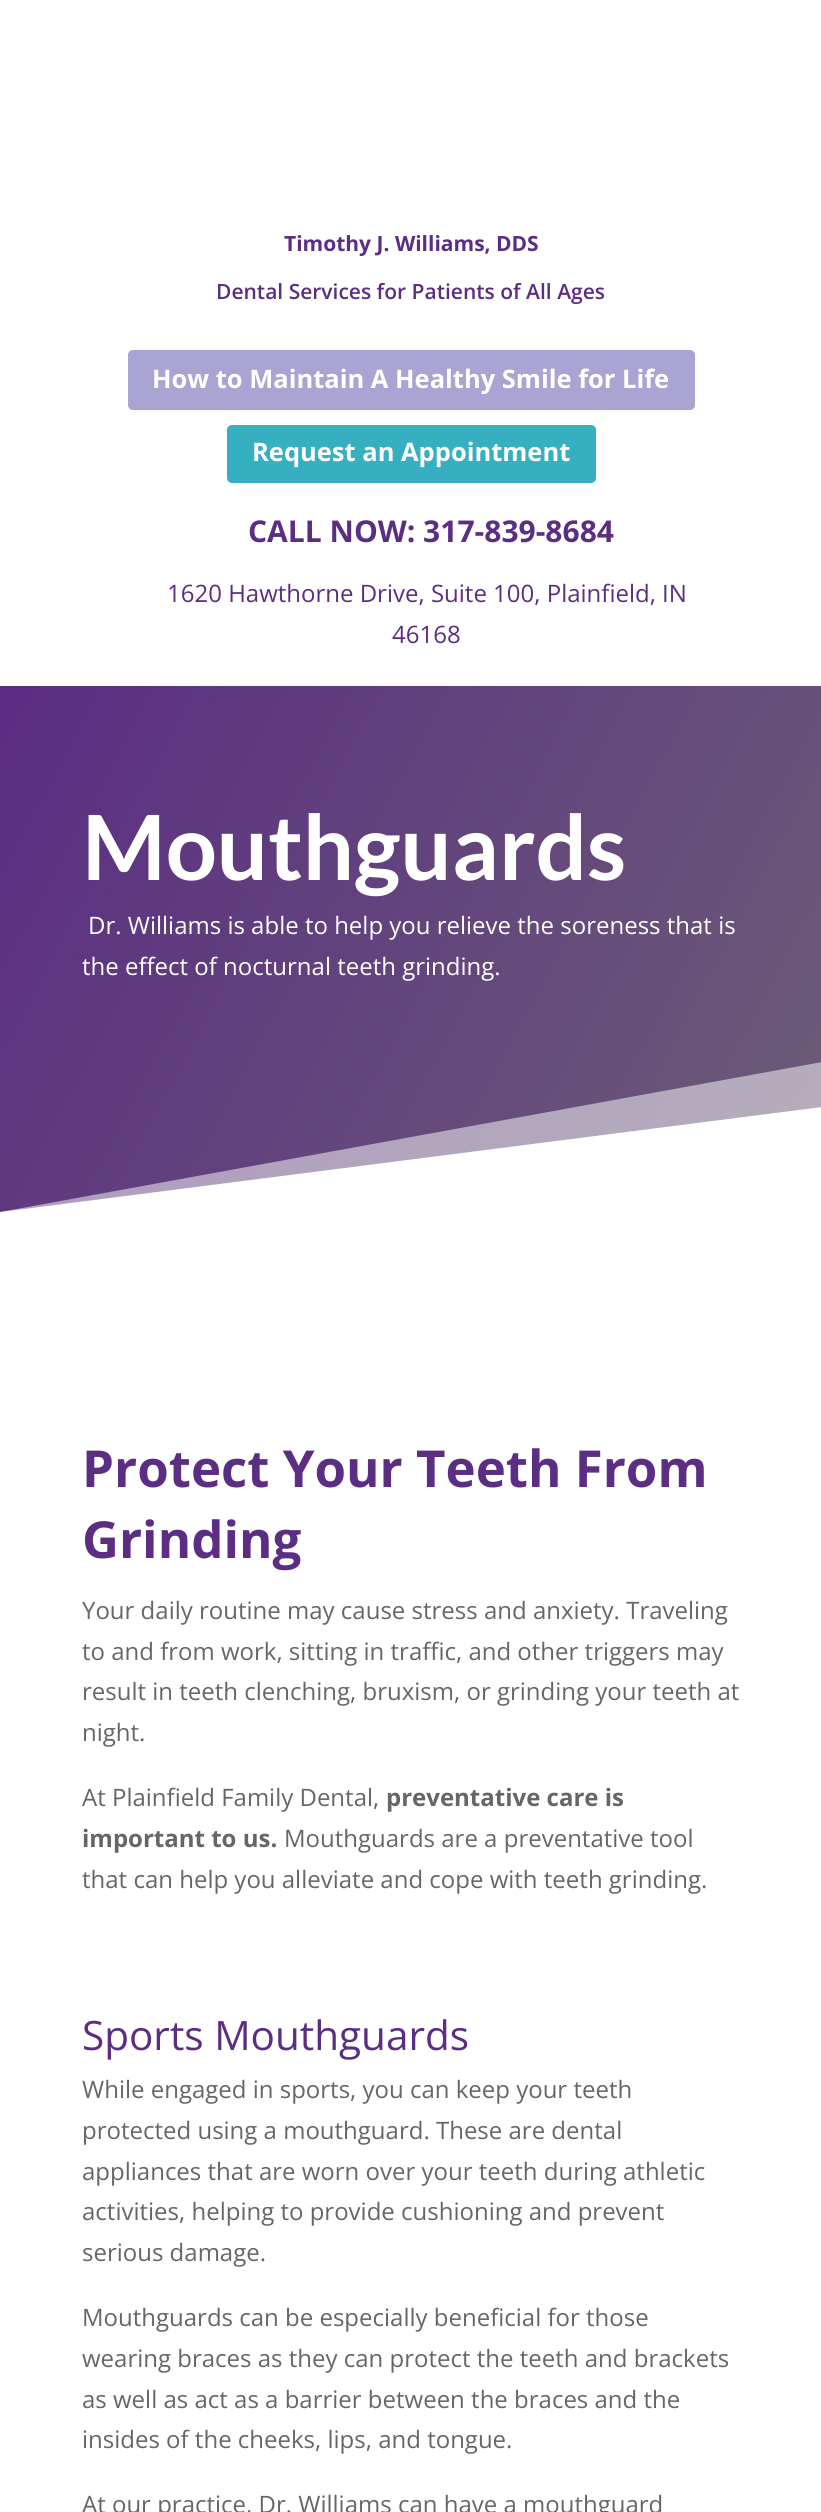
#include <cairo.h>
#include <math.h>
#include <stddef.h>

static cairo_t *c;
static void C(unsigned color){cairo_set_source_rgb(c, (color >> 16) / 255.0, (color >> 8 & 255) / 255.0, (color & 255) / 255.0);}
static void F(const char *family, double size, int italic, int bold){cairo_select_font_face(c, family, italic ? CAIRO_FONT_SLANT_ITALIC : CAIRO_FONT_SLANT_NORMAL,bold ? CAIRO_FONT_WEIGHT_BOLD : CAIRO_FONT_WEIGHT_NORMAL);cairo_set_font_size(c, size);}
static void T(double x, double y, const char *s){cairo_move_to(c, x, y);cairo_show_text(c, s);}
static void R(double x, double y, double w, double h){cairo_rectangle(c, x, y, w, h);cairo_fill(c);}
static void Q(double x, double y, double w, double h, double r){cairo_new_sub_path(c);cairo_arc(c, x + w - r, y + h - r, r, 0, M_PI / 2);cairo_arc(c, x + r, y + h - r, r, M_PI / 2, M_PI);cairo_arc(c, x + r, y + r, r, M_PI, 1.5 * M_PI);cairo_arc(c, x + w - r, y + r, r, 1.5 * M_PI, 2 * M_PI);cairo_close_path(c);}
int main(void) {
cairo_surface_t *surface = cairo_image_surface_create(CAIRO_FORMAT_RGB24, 821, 2512);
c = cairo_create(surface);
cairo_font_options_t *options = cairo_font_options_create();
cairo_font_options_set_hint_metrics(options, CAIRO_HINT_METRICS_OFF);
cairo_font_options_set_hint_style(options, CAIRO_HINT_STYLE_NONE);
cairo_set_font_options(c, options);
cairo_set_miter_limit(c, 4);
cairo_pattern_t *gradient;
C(0xffffff);
cairo_paint(c);
F("Open Sans",21,0,1);
C(0x5b2d83);
T(284,251,"Timothy J. Williams, DDS");
F("Open Sans SemiBold",21,0,0);
T(216,299,"Dental Services for Patients of All Ages");
C(0xa9a4d1);
Q(128,350,567,60,5);
cairo_fill(c);
F("Open Sans",25.5,0,1);
C(0xffffff);
T(152,388,"How to Maintain A Healthy Smile for Life");
C(0x36afc1);
Q(227,425,369,58,5);
cairo_fill(c);
C(0xffffff);
T(252,461,"Request an Appointment");
F("Open Sans",30,0,1);
C(0x5b2d83);
T(248,542,"CALL NOW: 317-839-8684");
F("Open Sans",24,0,0);
T(167,602,"1620 Hawthorne Drive, Suite 100, Plainfield, IN");
T(392,643,"46168");
gradient = cairo_pattern_create_linear(-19,720,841,1177);
cairo_pattern_add_color_stop_rgba(gradient,0,0.357,0.176,0.514,1);
cairo_pattern_add_color_stop_rgba(gradient,1,0.42,0.365,0.463,1);
cairo_set_source(c,gradient);
cairo_pattern_destroy(gradient);
R(0,686,821,526);
F("Lato",90,0,1);
C(0xffffff);
T(82,880,"Mouthguards");
F("Open Sans",24,0,0);
T(88,934,"Dr. Williams is able to help you relieve the soreness that is");
T(82,975,"the effect of nocturnal teeth grinding.");
cairo_set_source_rgba(c,1,1,1,0.5);
cairo_new_path(c);
cairo_move_to(c,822,1062);
cairo_line_to(c,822,1212);
cairo_line_to(c,0,1212);
cairo_close_path(c);
cairo_fill(c);
C(0xffffff);
cairo_new_path(c);
cairo_move_to(c,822,1107);
cairo_line_to(c,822,1212);
cairo_line_to(c,0,1212);
cairo_close_path(c);
cairo_fill(c);
F("Open Sans",51,0,1);
C(0x5b2d83);
T(82,1487,"Protect Your Teeth From");
T(82,1558,"Grinding");
F("Open Sans",24,0,0);
C(0x666666);
T(82,1619,"Your daily routine may cause stress and anxiety. Traveling");
T(82,1660,"to and from work, sitting in traffic, and other triggers may");
T(82,1700,"result in teeth clenching, bruxism, or grinding your teeth at");
T(82,1741,"night.");
T(82,1806,"At Plainfield Family Dental,");
F("Open Sans",24,0,1);
T(386,1806,"preventative care is");
T(82,1847,"important to us.");
F("Open Sans",24,0,0);
T(284,1847,"Mouthguards are a preventative tool");
T(82,1888,"that can help you alleviate and cope with teeth grinding.");
F("Open Sans",40.5,0,0);
C(0x5b2d83);
T(82,2050,"Sports Mouthguards");
F("Open Sans",24,0,0);
C(0x666666);
T(82,2098,"While engaged in sports, you can keep your teeth");
T(82,2139,"protected using a mouthguard. These are dental");
T(82,2180,"appliances that are worn over your teeth during athletic");
T(82,2220,"activities, helping to provide cushioning and prevent");
T(82,2261,"serious damage.");
T(82,2326,"Mouthguards can be especially beneficial for those");
T(82,2367,"wearing braces as they can protect the teeth and brackets");
T(82,2408,"as well as act as a barrier between the braces and the");
T(82,2448,"insides of the cheeks, lips, and tongue.");
T(82,2513,"At our practice, Dr. Williams can have a mouthguard");
cairo_surface_write_to_png(surface, "o.png");
cairo_font_options_destroy(options);
cairo_destroy(c);
cairo_surface_destroy(surface);
return 0;
}
